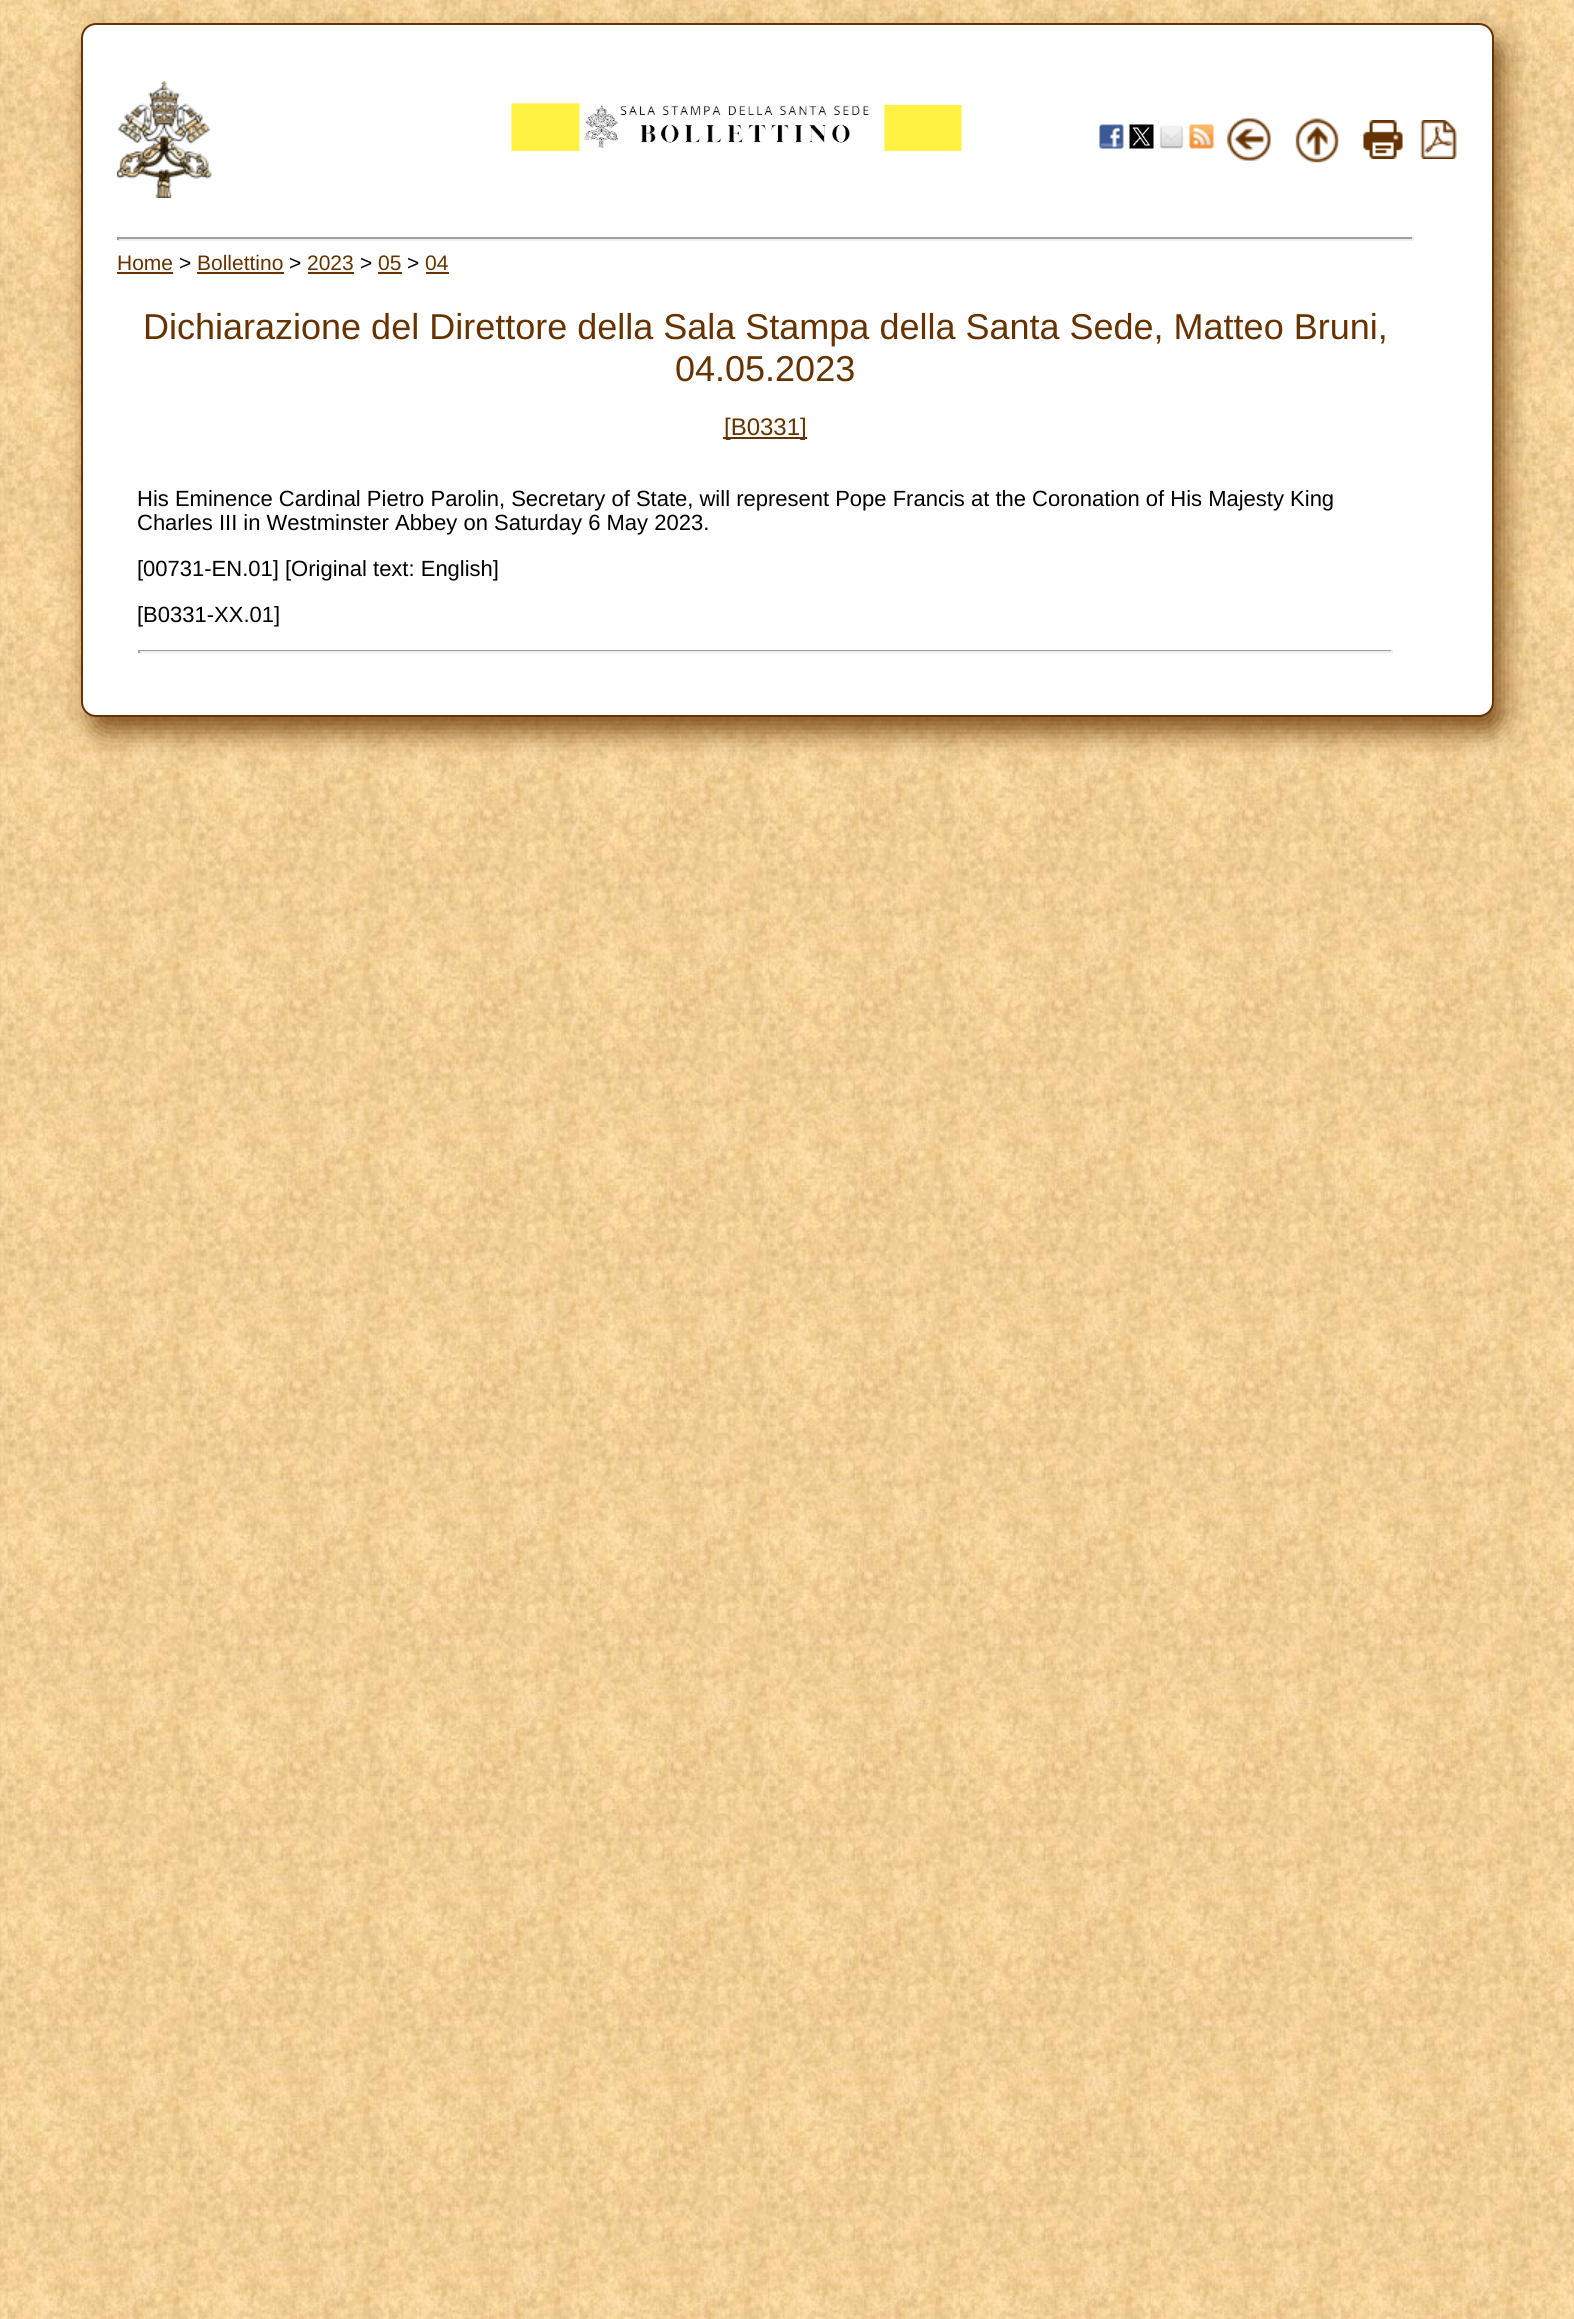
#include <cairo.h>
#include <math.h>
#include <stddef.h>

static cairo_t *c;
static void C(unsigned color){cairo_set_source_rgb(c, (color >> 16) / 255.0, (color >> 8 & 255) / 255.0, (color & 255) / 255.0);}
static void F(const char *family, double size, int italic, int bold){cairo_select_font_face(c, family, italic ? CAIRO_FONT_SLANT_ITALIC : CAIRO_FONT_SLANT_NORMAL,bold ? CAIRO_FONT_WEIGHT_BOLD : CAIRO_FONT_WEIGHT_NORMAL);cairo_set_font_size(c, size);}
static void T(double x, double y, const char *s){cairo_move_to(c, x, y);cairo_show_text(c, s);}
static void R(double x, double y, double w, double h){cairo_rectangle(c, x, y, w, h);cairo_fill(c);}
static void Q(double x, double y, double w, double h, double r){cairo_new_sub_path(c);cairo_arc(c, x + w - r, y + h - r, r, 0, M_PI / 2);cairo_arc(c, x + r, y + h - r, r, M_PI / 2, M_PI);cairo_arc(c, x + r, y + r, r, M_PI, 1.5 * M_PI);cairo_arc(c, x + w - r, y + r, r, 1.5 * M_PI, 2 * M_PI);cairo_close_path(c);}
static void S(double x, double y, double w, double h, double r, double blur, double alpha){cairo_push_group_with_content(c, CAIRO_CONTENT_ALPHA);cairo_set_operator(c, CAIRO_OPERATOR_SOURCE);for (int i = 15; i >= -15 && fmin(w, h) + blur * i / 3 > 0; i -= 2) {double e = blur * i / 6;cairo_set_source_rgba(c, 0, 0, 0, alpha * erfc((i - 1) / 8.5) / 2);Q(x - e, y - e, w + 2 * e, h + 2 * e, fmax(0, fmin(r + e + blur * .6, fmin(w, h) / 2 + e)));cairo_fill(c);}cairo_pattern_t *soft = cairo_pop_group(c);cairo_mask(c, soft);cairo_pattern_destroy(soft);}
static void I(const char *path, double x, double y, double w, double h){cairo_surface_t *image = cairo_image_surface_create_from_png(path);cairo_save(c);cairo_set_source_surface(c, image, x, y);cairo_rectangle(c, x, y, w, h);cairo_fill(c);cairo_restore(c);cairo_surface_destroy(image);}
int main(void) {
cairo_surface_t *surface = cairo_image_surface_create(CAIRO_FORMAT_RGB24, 1574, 2319);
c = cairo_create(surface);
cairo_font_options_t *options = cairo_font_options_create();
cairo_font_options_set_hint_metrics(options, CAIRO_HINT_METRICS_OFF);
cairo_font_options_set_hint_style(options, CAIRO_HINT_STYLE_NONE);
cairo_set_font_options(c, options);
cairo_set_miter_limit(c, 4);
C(0xffffff);
cairo_paint(c);
I("1.png",0,0,1574,2319);
C(0x663300);
S(90,38,1413,694,15,13,.8);
C(0xffffff);
Q(82,24,1411,692,14);
cairo_fill_preserve(c);
C(0x663300);
cairo_stroke(c);
I("2.png",117,81,95,117);
I("3.png",511,102,451,50);
I("4.png",1099,124,25,25);
I("5.png",1129,124,25,25);
I("6.png",1159,125,25,24);
I("7.png",1189,124,25,25);
I("8.png",1226,118,45,43);
I("9.png",1295,118,44,45);
I("10.png",1363,120,40,39);
I("11.png",1420,120,37,39);
C(0x9f9f9f);
R(117,237,1296,2);
C(0xeeeeee);
R(1412,237,2,3);
R(117,239,1296,2);
C(0x9f9f9f);
R(117,237,2,3);
F("Liberation Sans",21,0,0);
C(0x663300);
T(117,270,"Home");
R(117,272,56,2);
C(0x000000);
T(179,270,">");
C(0x663300);
T(197,270,"Bollettino");
R(197,272,87,2);
C(0x000000);
T(289,270,">");
C(0x663300);
T(307,270,"2023");
R(308,272,46,2);
C(0x000000);
T(360,270,">");
C(0x663300);
T(378,270,"05");
R(378,272,24,2);
C(0x000000);
T(407,270,">");
C(0x663300);
T(425,270,"04");
R(426,272,23,2);
F("Liberation Sans",36,0,0);
T(143,339,"Dichiarazione del Direttore della Sala Stampa della Santa Sede, Matteo Bruni,");
T(675,381,"04.05.2023");
R(723,437,84,2);
F("Liberation Sans",24,0,0);
T(724,435,"[B0331]");
F("Liberation Sans",22,0,0);
C(0x000000);
T(137,506,"His Eminence Cardinal Pietro Parolin, Secretary of State, will represent Pope Francis at the Coronation of His Majesty King");
T(137,530,"Charles III in Westminster Abbey on Saturday 6 May 2023.");
T(137,576,"[00731-EN.01] [Original text: English]");
T(137,622,"[B0331-XX.01]");
C(0x9f9f9f);
R(138,650,1254,1);
C(0xeeeeee);
R(1391,650,2,3);
R(138,651,1254,2);
C(0x9f9f9f);
R(138,650,2,3);
cairo_surface_write_to_png(surface, "o.png");
cairo_font_options_destroy(options);
cairo_destroy(c);
cairo_surface_destroy(surface);
return 0;
}
